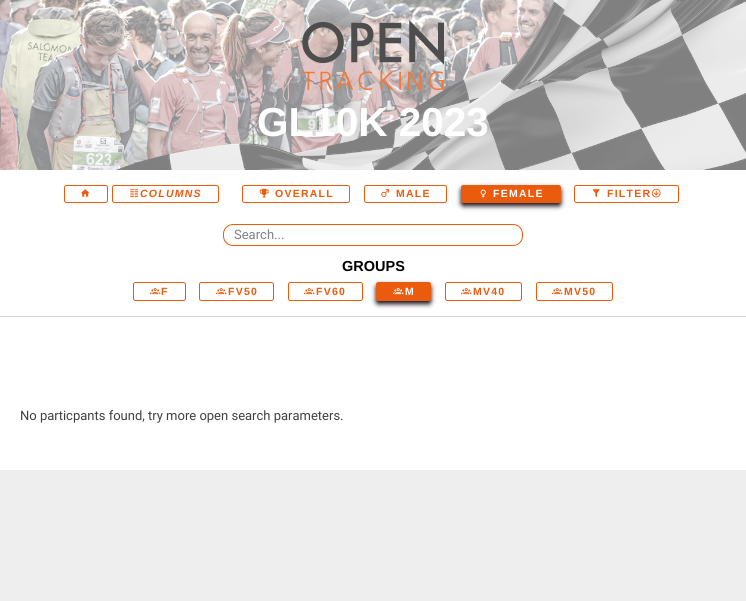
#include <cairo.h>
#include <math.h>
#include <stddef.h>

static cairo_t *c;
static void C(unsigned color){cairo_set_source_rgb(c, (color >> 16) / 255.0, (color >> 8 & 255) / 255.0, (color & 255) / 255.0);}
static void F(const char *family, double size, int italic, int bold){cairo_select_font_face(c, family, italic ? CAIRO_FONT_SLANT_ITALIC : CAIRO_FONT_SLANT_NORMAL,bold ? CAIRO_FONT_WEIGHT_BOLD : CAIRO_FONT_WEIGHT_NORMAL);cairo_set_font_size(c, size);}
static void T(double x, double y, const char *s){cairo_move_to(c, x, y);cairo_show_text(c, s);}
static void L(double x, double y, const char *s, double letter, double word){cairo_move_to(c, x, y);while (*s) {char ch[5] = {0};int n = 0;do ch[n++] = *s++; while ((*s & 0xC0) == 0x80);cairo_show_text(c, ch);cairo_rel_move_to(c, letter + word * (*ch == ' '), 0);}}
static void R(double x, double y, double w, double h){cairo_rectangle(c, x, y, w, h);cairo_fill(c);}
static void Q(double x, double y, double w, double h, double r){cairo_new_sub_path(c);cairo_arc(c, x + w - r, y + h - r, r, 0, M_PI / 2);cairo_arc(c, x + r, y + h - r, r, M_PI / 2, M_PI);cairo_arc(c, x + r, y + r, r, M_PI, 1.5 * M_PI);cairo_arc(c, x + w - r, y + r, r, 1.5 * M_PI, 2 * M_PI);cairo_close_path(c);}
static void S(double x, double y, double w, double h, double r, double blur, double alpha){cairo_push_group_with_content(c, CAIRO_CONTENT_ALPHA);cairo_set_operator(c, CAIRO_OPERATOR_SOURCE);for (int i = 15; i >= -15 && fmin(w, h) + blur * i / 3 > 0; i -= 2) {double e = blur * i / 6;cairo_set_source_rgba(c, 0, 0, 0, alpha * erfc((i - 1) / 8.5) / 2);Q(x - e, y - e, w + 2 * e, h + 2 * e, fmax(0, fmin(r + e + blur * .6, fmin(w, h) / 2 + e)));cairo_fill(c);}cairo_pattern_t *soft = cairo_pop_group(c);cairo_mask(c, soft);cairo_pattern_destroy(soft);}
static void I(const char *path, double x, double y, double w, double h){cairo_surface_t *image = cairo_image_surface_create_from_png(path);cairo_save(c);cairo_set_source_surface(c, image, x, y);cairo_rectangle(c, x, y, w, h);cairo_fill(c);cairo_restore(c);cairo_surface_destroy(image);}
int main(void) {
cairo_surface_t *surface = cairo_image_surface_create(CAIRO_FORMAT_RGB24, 746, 601);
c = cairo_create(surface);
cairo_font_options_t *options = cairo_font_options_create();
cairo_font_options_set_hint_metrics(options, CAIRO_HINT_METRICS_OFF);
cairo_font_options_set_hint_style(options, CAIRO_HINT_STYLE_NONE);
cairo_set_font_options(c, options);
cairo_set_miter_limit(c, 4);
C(0xeeeeee);
cairo_paint(c);
C(0xffffff);
R(0,170,746,300);
I("1.png",0,0,746,170);
I("2.png",302,20,142,70);
F("Liberation Sans",40.5,0,1);
T(257,136,"GL10K 2023");
C(0xd3d3d3);
R(0,316,746,1);
Q(64.5,185.5,43,17,2);
C(0xeb5b0d);
cairo_set_line_width(c,1);
cairo_stroke(c);
I("3.png",81,189,9,8);
Q(112.5,185.5,106,17,2);
cairo_stroke(c);
I("4.png",130,189,9,8);
F("Liberation Sans",10.5,1,1);
L(140,197,"COLUMNS",1.25,0);
Q(242.5,185.5,107,17,2);
cairo_stroke(c);
I("5.png",259,188,10,10);
F("Liberation Sans",10.5,0,1);
L(275,197,"OVERALL",1.25,0);
Q(364.5,185.5,82,17,2);
cairo_stroke(c);
I("6.png",381,189,9,8);
L(396,197,"MALE",1.25,0);
C(0x130815);
S(461,188,100,18,2.5,2.5,1);
Q(461.5,185.5,99,17,2);
C(0xeb5b0d);
cairo_stroke(c);
R(462,186,98,16);
I("7.png",480,189,6,9);
C(0xffffff);
L(493,197,"FEMALE",1.25,0);
Q(574.5,185.5,104,17,2);
C(0xeb5b0d);
cairo_stroke(c);
I("8.png",592,189,8,8);
L(607,197,"FILTER",1.25,0);
I("9.png",651,188,10,10);
Q(223.5,224.5,299,21,9.5);
cairo_stroke(c);
F("Roboto",13,0,0);
C(0x808080);
T(234,239,"Search...");
F("Liberation Sans",14.5,0,1);
C(0x000000);
T(342,271,"GROUPS");
Q(133.5,282.5,52,18,2);
C(0xeb5b0d);
cairo_stroke(c);
I("10.png",150,288,11,7);
F("Liberation Sans",10.5,0,1);
L(161,295,"F",1.25,0);
Q(199.5,282.5,74,18,2);
cairo_stroke(c);
I("10.png",216,288,11,7);
L(228,295,"FV50",1.25,0);
Q(288.5,282.5,74,18,2);
cairo_stroke(c);
I("10.png",304,288,11,7);
L(316,295,"FV60",1.25,0);
C(0x130815);
S(376,285,55,19,2.5,2.5,1);
Q(376.5,282.5,54,18,2);
C(0xeb5b0d);
cairo_stroke(c);
R(377,283,53,17);
I("11.png",393,288,11,7);
C(0xffffff);
L(405,295,"M",1.25,0);
Q(445.5,282.5,76,18,2);
C(0xeb5b0d);
cairo_stroke(c);
I("10.png",461,288,11,7);
L(473,295,"MV40",1.25,0);
Q(536.5,282.5,76,18,2);
cairo_stroke(c);
I("10.png",552,288,11,7);
L(564,295,"MV50",1.25,0);
F("Roboto",13,0,0);
C(0x404040);
T(20,420,"No particpants found, try more open search parameters.");
cairo_surface_write_to_png(surface, "o.png");
cairo_font_options_destroy(options);
cairo_destroy(c);
cairo_surface_destroy(surface);
return 0;
}
